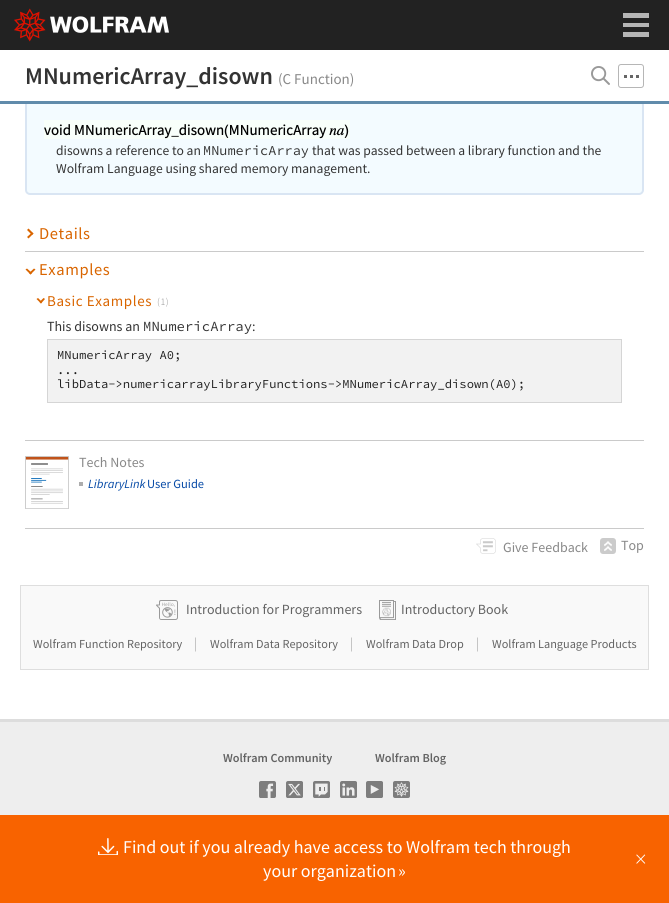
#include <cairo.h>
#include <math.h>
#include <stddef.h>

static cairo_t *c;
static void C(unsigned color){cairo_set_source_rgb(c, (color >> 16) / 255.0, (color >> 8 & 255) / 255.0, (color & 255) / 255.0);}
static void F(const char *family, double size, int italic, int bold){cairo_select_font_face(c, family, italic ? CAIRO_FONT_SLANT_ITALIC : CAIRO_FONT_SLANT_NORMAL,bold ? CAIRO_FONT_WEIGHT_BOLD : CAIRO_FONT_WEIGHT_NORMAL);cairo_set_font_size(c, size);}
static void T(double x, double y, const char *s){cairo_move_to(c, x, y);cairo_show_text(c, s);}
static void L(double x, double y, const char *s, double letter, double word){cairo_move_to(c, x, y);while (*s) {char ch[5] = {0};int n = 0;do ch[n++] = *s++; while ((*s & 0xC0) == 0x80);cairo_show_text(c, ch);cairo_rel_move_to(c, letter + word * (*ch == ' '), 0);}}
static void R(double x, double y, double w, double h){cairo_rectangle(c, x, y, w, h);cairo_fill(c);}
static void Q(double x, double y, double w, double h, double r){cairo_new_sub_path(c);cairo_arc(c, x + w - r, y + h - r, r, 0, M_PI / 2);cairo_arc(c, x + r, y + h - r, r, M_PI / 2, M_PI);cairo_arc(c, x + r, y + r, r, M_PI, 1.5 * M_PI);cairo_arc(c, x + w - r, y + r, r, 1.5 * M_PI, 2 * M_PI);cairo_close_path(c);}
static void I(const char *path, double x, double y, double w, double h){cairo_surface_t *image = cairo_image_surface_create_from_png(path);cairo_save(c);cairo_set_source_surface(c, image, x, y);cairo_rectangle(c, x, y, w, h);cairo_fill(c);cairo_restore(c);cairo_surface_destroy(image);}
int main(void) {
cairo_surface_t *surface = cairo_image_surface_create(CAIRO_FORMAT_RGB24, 669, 903);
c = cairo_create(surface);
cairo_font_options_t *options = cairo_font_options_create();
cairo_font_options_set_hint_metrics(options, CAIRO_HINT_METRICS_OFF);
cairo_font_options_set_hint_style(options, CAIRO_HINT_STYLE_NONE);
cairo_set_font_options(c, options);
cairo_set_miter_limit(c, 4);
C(0xffffff);
cairo_paint(c);
C(0x222222);
R(0,0,669,50);
I("1.png",14,8,155,34);
C(0xb5b5b5);
R(623,13,26,5);
R(623,23,26,4);
R(623,32,26,5);
C(0xf3fbff);
Q(26,101,617,93,4);
cairo_fill_preserve(c);
C(0xd9e5f3);
cairo_stroke(c);
C(0xffffff);
R(27,100,615,1);
C(0x608bab);
R(0,101,669,3);
F("Source Sans Pro SemiBold",24,0,0);
C(0x333333);
T(25,84,"MNumericArray_disown");
F("Source Sans Pro",15,0,0);
C(0x888888);
T(278,84,"(C Function)");
I("2.png",591,66,19,19);
Q(618.5,64.5,25,23,2.5);
C(0xb6b6b6);
cairo_set_line_width(c,1);
cairo_stroke(c);
C(0x666666);
R(624,75,3,3);
R(630,75,3,3);
R(636,75,3,3);
I("3.png",44,120,306,19);
F("Source Sans Pro",13.6,0,0);
C(0x333333);
T(56,155,"disowns a reference to an");
F("Source Code Pro",13.6,0,0);
T(203,155,"MNumericArray");
F("Source Sans Pro",13.6,0,0);
T(312,155,"that was passed between a library function and the");
T(56,173,"Wolfram Language using shared memory management.");
C(0xd96500);
cairo_new_path(c);
cairo_move_to(c,27,230);
cairo_line_to(c,28.5,228.5);
cairo_line_to(c,33.5,233.5);
cairo_line_to(c,32,235);
cairo_close_path(c);
cairo_fill(c);
cairo_new_path(c);
cairo_move_to(c,27,237);
cairo_line_to(c,32,232.5);
cairo_line_to(c,33.5,233.5);
cairo_line_to(c,28.5,238.5);
cairo_close_path(c);
cairo_fill(c);
F("Source Sans Pro",16.5,0,0);
L(39,239,"Details",.6,0);
C(0xcacaca);
R(25,251,619,1);
C(0xd96500);
cairo_new_path(c);
cairo_move_to(c,29,273);
cairo_line_to(c,34,268.5);
cairo_line_to(c,35.5,269.5);
cairo_line_to(c,30.5,274.5);
cairo_close_path(c);
cairo_fill(c);
cairo_new_path(c);
cairo_move_to(c,25.5,269.5);
cairo_line_to(c,27,268.5);
cairo_line_to(c,32,273);
cairo_line_to(c,30.5,274.5);
cairo_close_path(c);
cairo_fill(c);
L(39,275,"Examples",.6,0);
cairo_new_path(c);
cairo_move_to(c,39.5,302);
cairo_line_to(c,43.5,298);
cairo_line_to(c,45,299);
cairo_line_to(c,41,303.5);
cairo_close_path(c);
cairo_fill(c);
cairo_new_path(c);
cairo_move_to(c,36.5,299);
cairo_line_to(c,38,298);
cairo_line_to(c,42,302);
cairo_line_to(c,41,303.5);
cairo_close_path(c);
cairo_fill(c);
F("Source Sans Pro",15,0,0);
L(47,306,"Basic Examples",.6,0);
F("Source Sans Pro Light",10,0,0);
C(0x888888);
L(157,305,"(1)",.6,0);
F("Source Sans Pro",14,0,0);
C(0x333333);
T(47,331,"This disowns an");
F("Source Code Pro",14,0,0);
T(143,331,"MNumericArray");
F("Source Sans Pro",14,0,0);
T(252,331,":");
C(0xf2f2f2);
cairo_rectangle(c,47.5,339.5,574,63);
cairo_fill_preserve(c);
C(0xd5d5d5);
cairo_stroke(c);
F("Source Code Pro",12.2,0,0);
C(0x1d1d1d);
T(57,359,"MNumericArray A0;");
T(57,374,"...");
T(57,388,"libData->numericarrayLibraryFunctions->MNumericArray_disown(A0);");
I("4.png",25,456,44,53);
C(0xcacaca);
R(25,440,619,1);
F("Source Sans Pro",14,0,0);
C(0x888888);
T(79,467,"Tech Notes");
C(0xadadad);
R(79,482,4,4);
F("Source Sans Pro",12.5,1,0);
C(0x0549a6);
T(88,488,"LibraryLink");
F("Source Sans Pro",12.5,0,0);
T(147,488,"User Guide");
C(0xcacaca);
R(25,528,619,1);
I("5.png",476,538,20,16);
F("Source Sans Pro",14,0,0);
C(0x888888);
T(503,552,"Give Feedback");
C(0xcbcbcb);
Q(600,538,16,16,3);
cairo_fill(c);
C(0x888888);
T(621,550,"Top");
I("6.png",604,541,8,10);
C(0xf9f9f9);
cairo_rectangle(c,20.5,585.5,628,84);
cairo_fill_preserve(c);
C(0xdedede);
cairo_stroke(c);
I("7.png",156,600,22,20);
C(0x636363);
T(186,614,"Introduction for Programmers");
I("8.png",379,600,17,20);
T(401,614,"Introductory Book");
F("Source Sans Pro",12.25,0,0);
T(33,648,"Wolfram Function Repository");
F("Source Sans Pro Light",14,0,0);
C(0x919191);
T(194,648,"|");
F("Source Sans Pro",12.25,0,0);
C(0x636363);
T(210,648,"Wolfram Data Repository");
F("Source Sans Pro Light",14,0,0);
C(0x919191);
T(350,648,"|");
F("Source Sans Pro",12.25,0,0);
C(0x636363);
T(366,648,"Wolfram Data Drop");
F("Source Sans Pro Light",14,0,0);
C(0x919191);
T(476,648,"|");
F("Source Sans Pro",12.25,0,0);
C(0x636363);
T(492,648,"Wolfram Language Products");
C(0xeeeeee);
R(0,722,669,93);
C(0xdddddd);
R(0,719,669,3);
F("Source Sans Pro SemiBold",12.25,0,0);
C(0x636363);
T(223,762,"Wolfram Community");
T(375,762,"Wolfram Blog");
I("9.png",259,781,17,17);
I("10.png",286,781,17,17);
I("11.png",313,781,17,17);
I("12.png",340,781,17,17);
I("13.png",366,781,17,17);
I("14.png",393,781,17,17);
C(0xf86300);
R(0,815,669,88);
I("15.png",98,838,20,17);
F("Source Sans Pro",18,0,0);
C(0xffffff);
T(123,853,"Find out if you already have access to Wolfram tech through");
T(263,877,"your organization");
T(398,877,"»");
F("Source Sans Pro Light",24,0,0);
T(635,867,"×");
cairo_surface_write_to_png(surface, "o.png");
cairo_font_options_destroy(options);
cairo_destroy(c);
cairo_surface_destroy(surface);
return 0;
}
